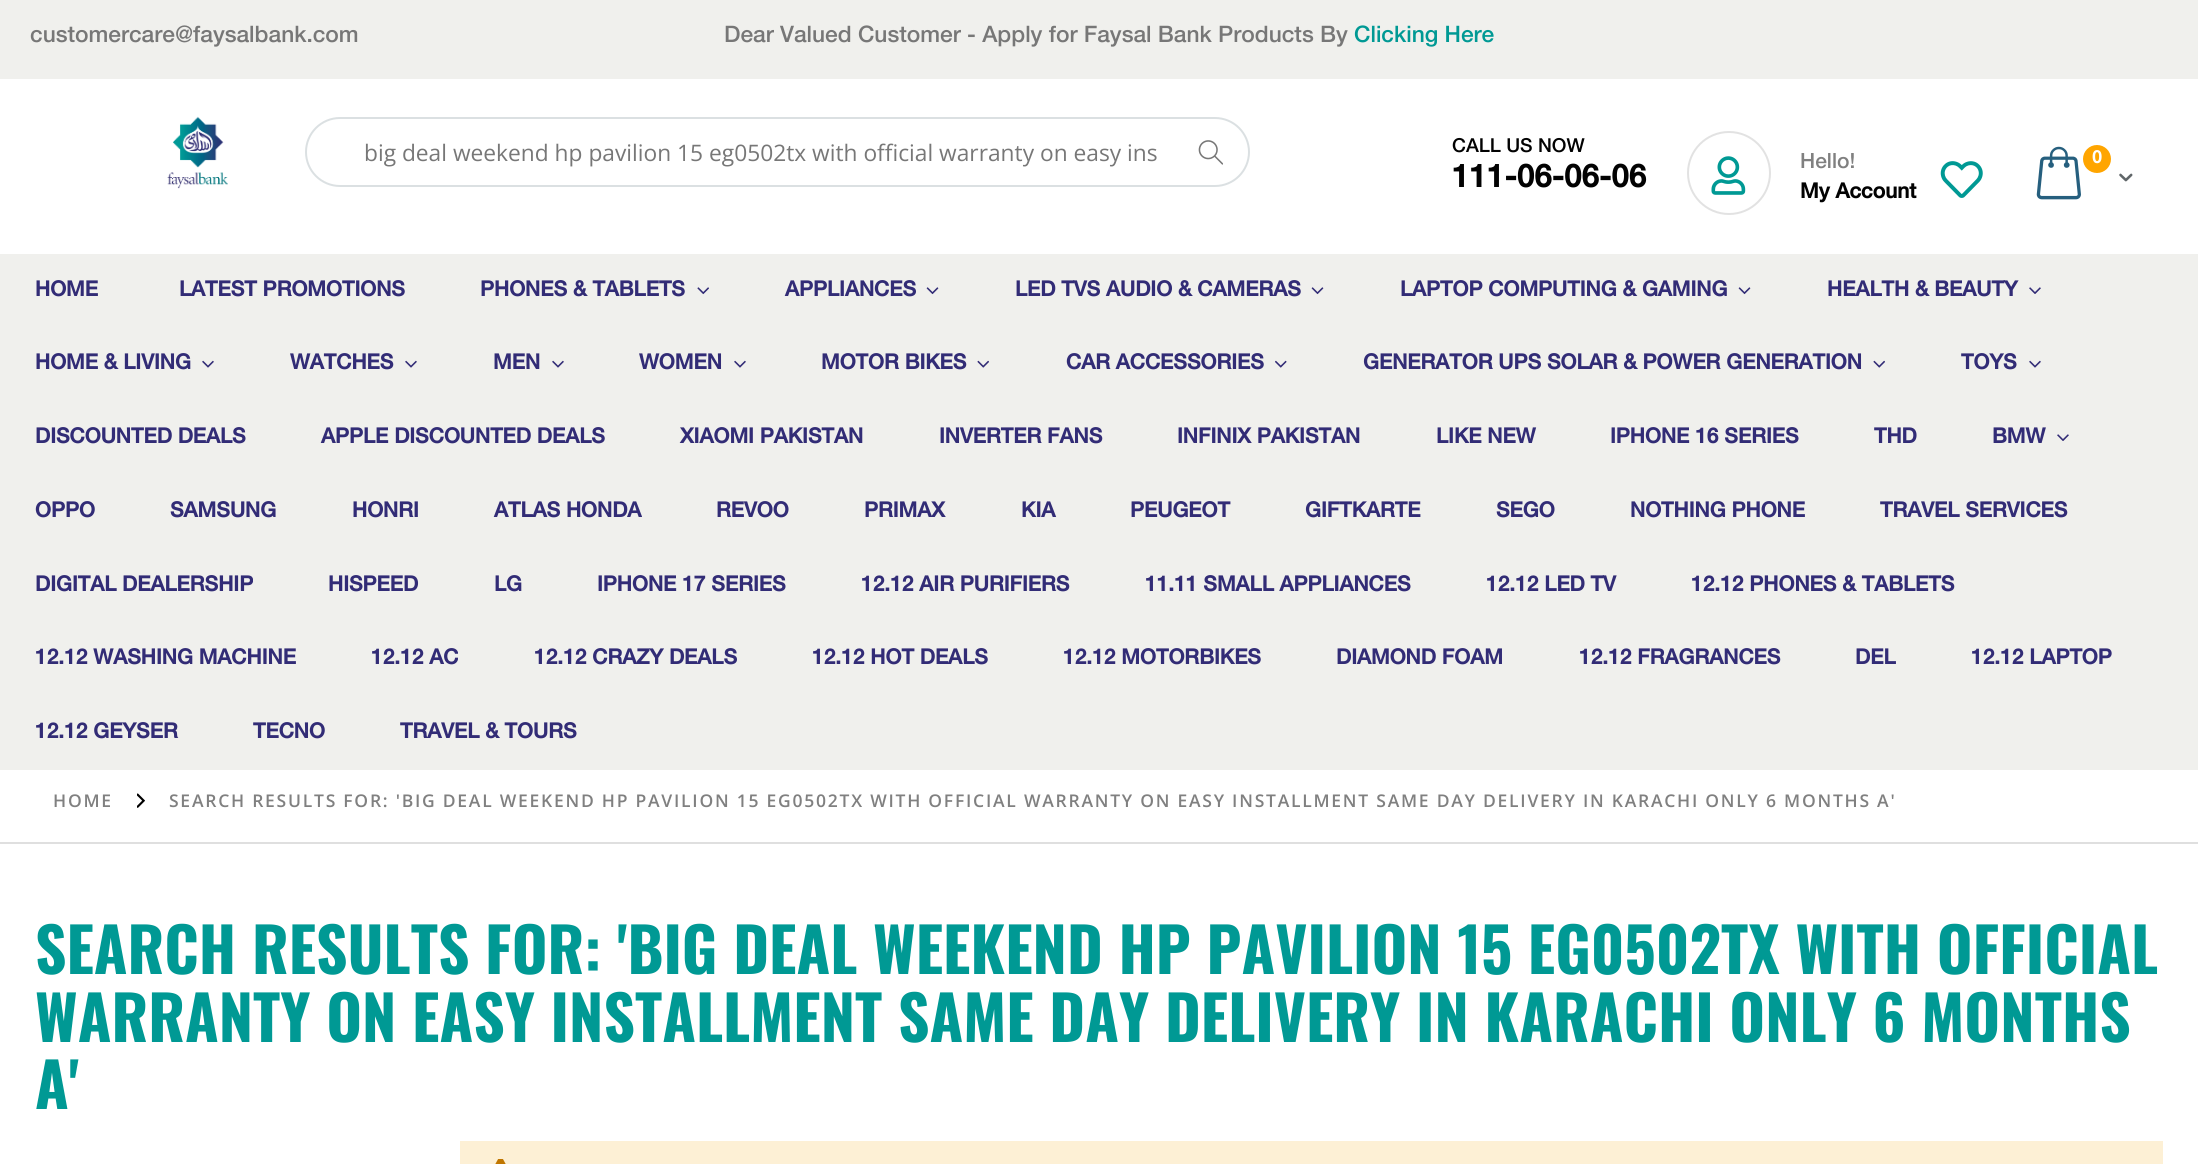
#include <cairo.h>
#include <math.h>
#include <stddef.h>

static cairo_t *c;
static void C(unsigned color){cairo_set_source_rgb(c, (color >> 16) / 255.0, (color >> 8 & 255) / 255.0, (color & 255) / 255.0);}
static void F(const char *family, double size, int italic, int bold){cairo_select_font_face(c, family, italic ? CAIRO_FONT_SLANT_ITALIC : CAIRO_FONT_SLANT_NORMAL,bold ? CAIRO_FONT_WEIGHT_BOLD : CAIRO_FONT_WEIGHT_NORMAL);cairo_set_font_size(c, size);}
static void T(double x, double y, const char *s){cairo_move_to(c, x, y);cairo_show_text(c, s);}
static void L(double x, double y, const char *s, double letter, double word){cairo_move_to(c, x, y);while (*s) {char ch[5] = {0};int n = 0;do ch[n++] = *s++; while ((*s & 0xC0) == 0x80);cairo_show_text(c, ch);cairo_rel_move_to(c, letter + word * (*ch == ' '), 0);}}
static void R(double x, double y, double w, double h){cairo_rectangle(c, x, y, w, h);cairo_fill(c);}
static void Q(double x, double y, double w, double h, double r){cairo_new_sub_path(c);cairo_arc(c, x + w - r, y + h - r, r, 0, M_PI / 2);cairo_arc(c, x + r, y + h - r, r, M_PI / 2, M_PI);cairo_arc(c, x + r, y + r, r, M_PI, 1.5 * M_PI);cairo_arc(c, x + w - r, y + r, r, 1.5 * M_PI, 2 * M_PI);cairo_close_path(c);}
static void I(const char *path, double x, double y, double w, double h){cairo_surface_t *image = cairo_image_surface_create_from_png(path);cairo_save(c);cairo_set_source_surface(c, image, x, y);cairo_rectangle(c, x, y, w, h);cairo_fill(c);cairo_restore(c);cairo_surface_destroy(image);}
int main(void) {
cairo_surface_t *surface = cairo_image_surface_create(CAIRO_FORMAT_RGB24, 2198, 1164);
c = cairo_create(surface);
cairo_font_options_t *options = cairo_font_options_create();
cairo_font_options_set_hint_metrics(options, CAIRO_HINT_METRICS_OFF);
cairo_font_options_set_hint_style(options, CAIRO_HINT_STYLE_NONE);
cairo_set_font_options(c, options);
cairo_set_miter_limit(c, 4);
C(0xffffff);
cairo_paint(c);
C(0xf0f0ed);
R(0,0,2198,79);
F("Helvetica Neue Medium",22.75,0,0);
C(0x777777);
T(30,42,"customercare@faysalbank.com");
T(724,42,"Dear Valued Customer - Apply for Faysal Bank Products By");
C(0x009994);
T(1354,42,"Clicking Here");
I("1.png",167,116,61,73);
Q(306,118,943,68,34);
C(0xdbe0e2);
cairo_stroke(c);
F("Open Sans",22.75,0,0);
C(0x777777);
T(364,161,"big deal weekend hp pavilion 15 eg0502tx with official warranty on easy ins");
I("2.png",1198,140,25,25);
F("Helvetica Neue Medium",19.25,0,0);
C(0x020202);
T(1452,152,"CALL US NOW");
F("Helvetica Neue",31.5,0,1);
T(1452,187,"111-06-06-06");
cairo_new_path(c);
cairo_arc(c,1729,173,41,0,2 * M_PI);
C(0xe2e2e2);
cairo_stroke(c);
I("3.png",1711,156,35,39);
F("Helvetica Neue Medium",21,0,0);
C(0x808080);
T(1800,168,"Hello!");
F("Helvetica Neue",21,0,1);
C(0x020202);
T(1800,198,"My Account");
I("4.png",1940,161,43,37);
I("5.png",2036,146,45,54);
C(0xffa500);
cairo_arc(c,2097,159,14,0,2 * M_PI);
cairo_fill(c);
F("Helvetica Neue",17.5,0,1);
C(0xffffff);
T(2092,163,"0");
I("6.png",2119,173,14,9);
C(0xf0f0ed);
R(0,254,2198,516);
F("Helvetica Neue",21,0,1);
C(0x322c76);
T(35,296,"HOME");
T(179,296,"LATEST PROMOTIONS");
T(480,296,"PHONES & TABLETS");
I("7.png",697,287,12,8);
T(785,296,"APPLIANCES");
I("8.png",926,287,13,8);
T(1015,296,"LED TVS AUDIO & CAMERAS");
I("8.png",1311,287,13,8);
T(1400,296,"LAPTOP COMPUTING & GAMING");
I("8.png",1738,287,13,8);
T(1827,296,"HEALTH & BEAUTY");
I("9.png",2029,287,12,7);
T(35,369,"HOME & LIVING");
I("10.png",202,360,12,8);
T(290,369,"WATCHES");
I("10.png",405,360,12,8);
T(493,369,"MEN");
I("10.png",552,360,12,8);
T(639,369,"WOMEN");
I("10.png",734,360,12,8);
T(821,369,"MOTOR BIKES");
I("11.png",977,360,12,8);
T(1066,369,"CAR ACCESSORIES");
I("12.png",1275,360,12,8);
T(1363,369,"GENERATOR UPS SOLAR & POWER GENERATION");
I("11.png",1873,360,12,8);
T(1961,369,"TOYS");
I("10.png",2029,360,12,8);
T(35,443,"DISCOUNTED DEALS");
T(321,443,"APPLE DISCOUNTED DEALS");
T(680,443,"XIAOMI PAKISTAN");
T(939,443,"INVERTER FANS");
T(1177,443,"INFINIX PAKISTAN");
T(1436,443,"LIKE NEW");
T(1610,443,"IPHONE 16 SERIES");
T(1874,443,"THD");
T(1992,443,"BMW");
I("9.png",2057,434,12,7);
T(35,517,"OPPO");
T(170,517,"SAMSUNG");
T(352,517,"HONRI");
T(494,517,"ATLAS HONDA");
T(716,517,"REVOO");
T(864,517,"PRIMAX");
T(1021,517,"KIA");
T(1130,517,"PEUGEOT");
T(1305,517,"GIFTKARTE");
T(1496,517,"SEGO");
T(1630,517,"NOTHING PHONE");
T(1880,517,"TRAVEL SERVICES");
T(35,591,"DIGITAL DEALERSHIP");
T(328,591,"HISPEED");
T(494,591,"LG");
T(597,591,"IPHONE 17 SERIES");
T(861,591,"12.12 AIR PURIFIERS");
T(1145,591,"11.11 SMALL APPLIANCES");
T(1486,591,"12.12 LED TV");
T(1691,591,"12.12 PHONES & TABLETS");
T(35,664,"12.12 WASHING MACHINE");
T(371,664,"12.12 AC");
T(534,664,"12.12 CRAZY DEALS");
T(812,664,"12.12 HOT DEALS");
T(1063,664,"12.12 MOTORBIKES");
T(1336,664,"DIAMOND FOAM");
T(1579,664,"12.12 FRAGRANCES");
T(1855,664,"DEL");
T(1971,664,"12.12 LAPTOP");
T(35,738,"12.12 GEYSER");
T(253,738,"TECNO");
T(400,738,"TRAVEL & TOURS");
C(0xdfdfdf);
R(0,842,2198,2);
F("Open Sans SemiBold",17.5,0,0);
C(0x808080);
L(53,807,"HOME",1.75,0);
I("13.png",137,793,8,15);
L(169,807,"SEARCH RESULTS FOR: 'BIG DEAL WEEKEND HP PAVILION 15 EG0502TX WITH OFFICIAL WARRANTY ON EASY INSTALLMENT SAME DAY DELIVERY IN KARACHI ONLY 6 MONTHS A'",1.75,0);
F("Oswald",61.25,0,1);
C(0x009994);
T(35,974,"SEARCH RESULTS FOR: 'BIG DEAL WEEKEND HP PAVILION 15 EG0502TX WITH OFFICIAL");
T(35,1042,"WARRANTY ON EASY INSTALLMENT SAME DAY DELIVERY IN KARACHI ONLY 6 MONTHS");
T(35,1109,"A'");
C(0xfdf0d5);
R(460,1141,1703,23);
I("14.png",495,1159,11,5);
cairo_surface_write_to_png(surface, "o.png");
cairo_font_options_destroy(options);
cairo_destroy(c);
cairo_surface_destroy(surface);
return 0;
}
